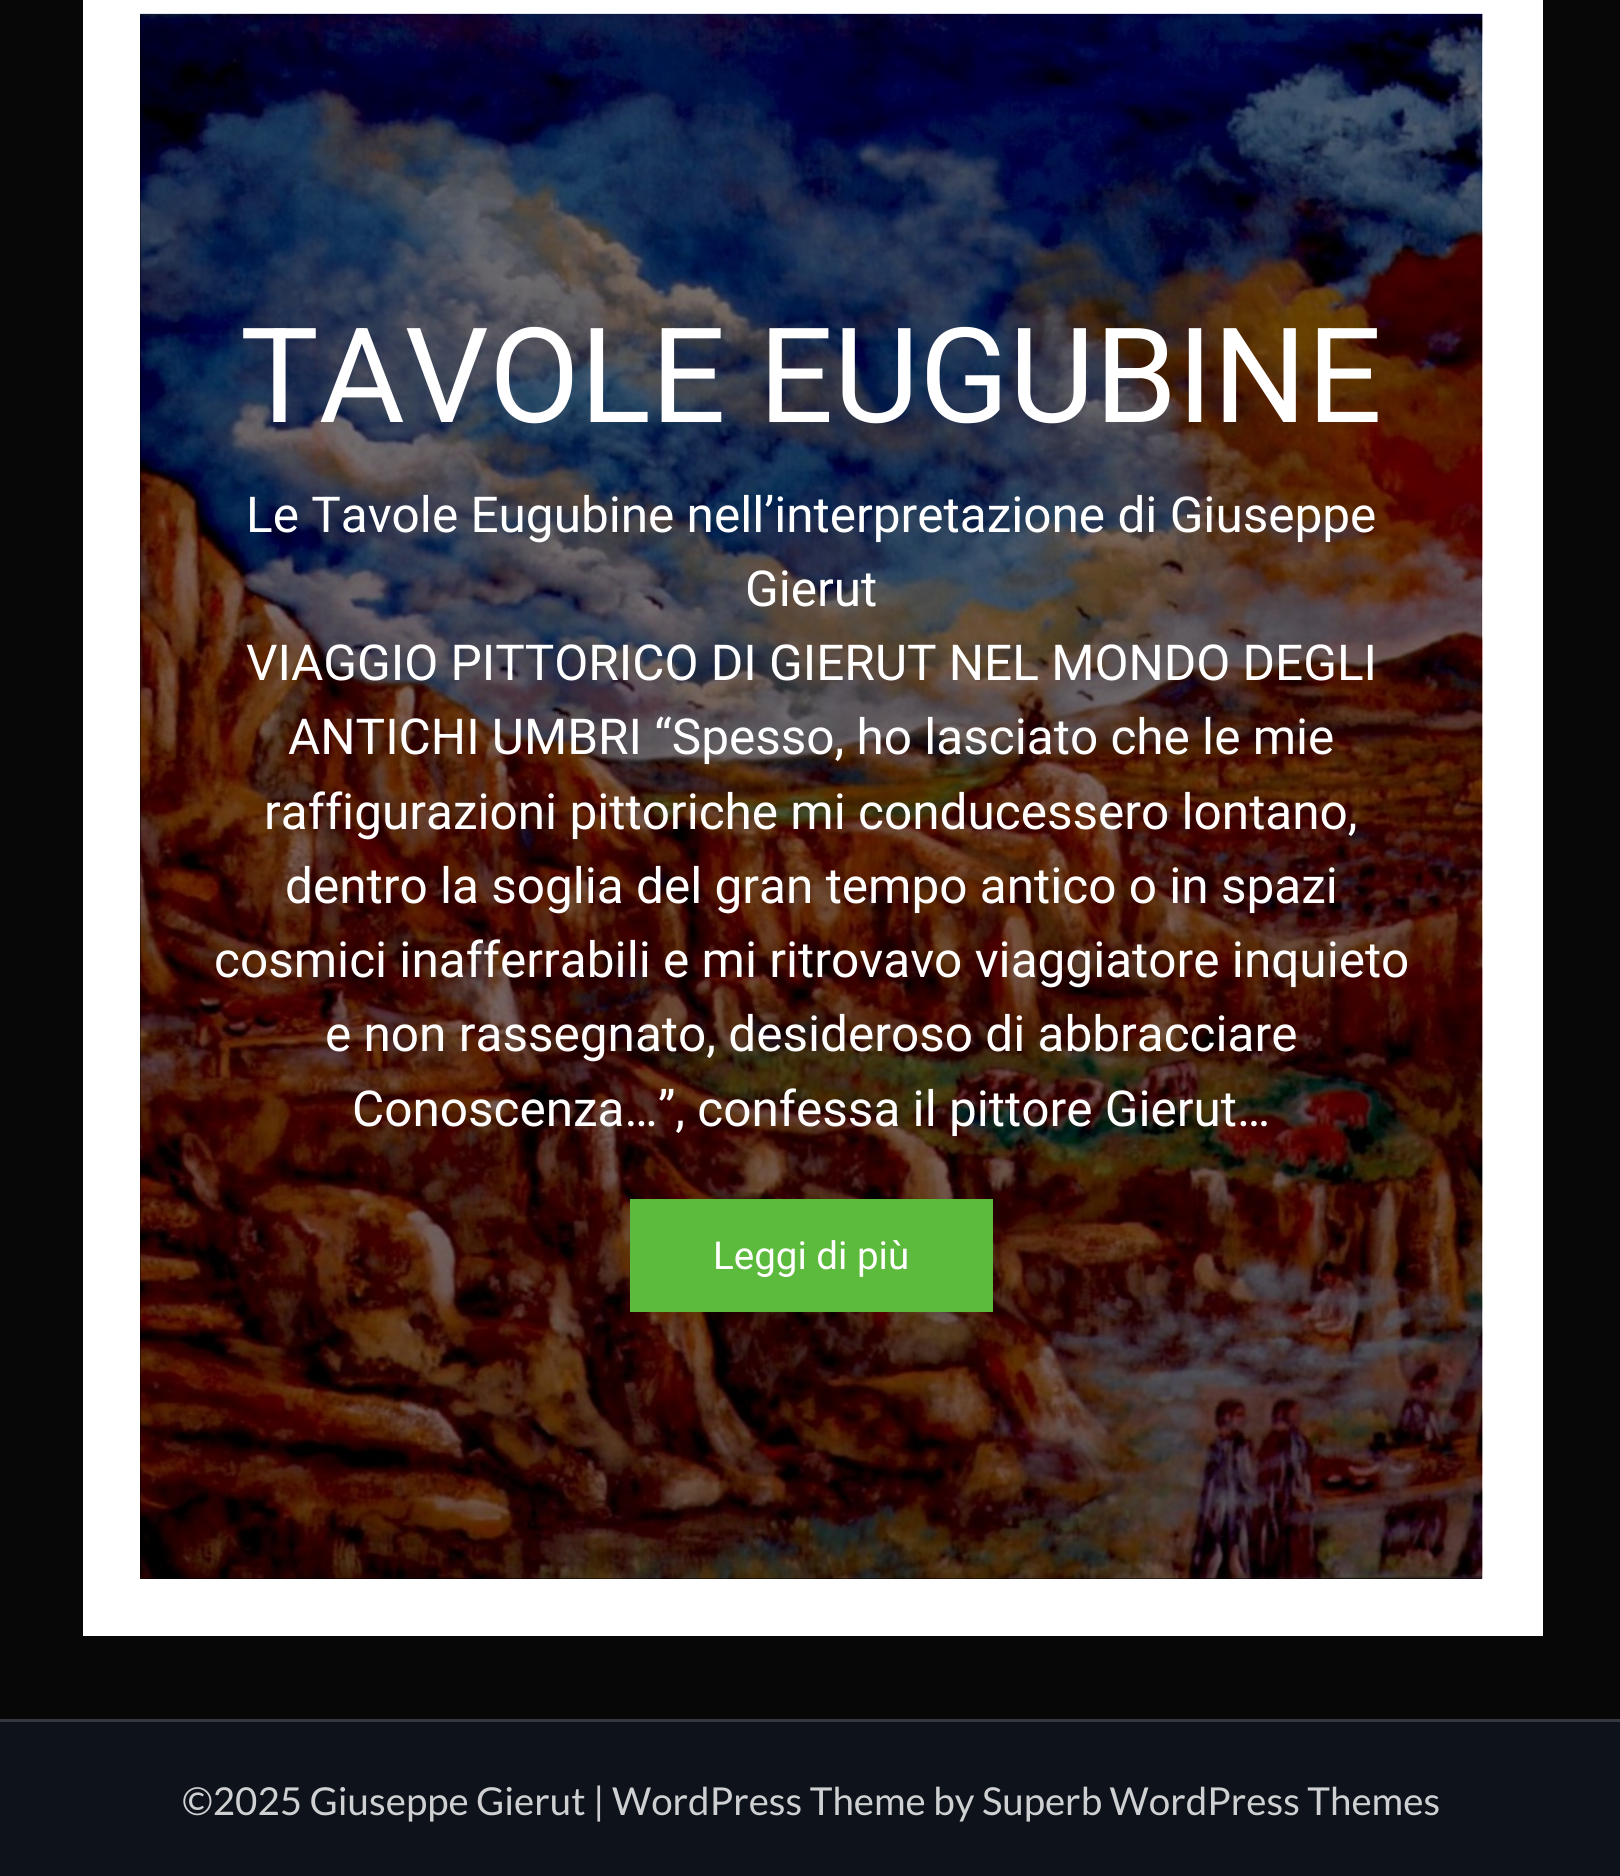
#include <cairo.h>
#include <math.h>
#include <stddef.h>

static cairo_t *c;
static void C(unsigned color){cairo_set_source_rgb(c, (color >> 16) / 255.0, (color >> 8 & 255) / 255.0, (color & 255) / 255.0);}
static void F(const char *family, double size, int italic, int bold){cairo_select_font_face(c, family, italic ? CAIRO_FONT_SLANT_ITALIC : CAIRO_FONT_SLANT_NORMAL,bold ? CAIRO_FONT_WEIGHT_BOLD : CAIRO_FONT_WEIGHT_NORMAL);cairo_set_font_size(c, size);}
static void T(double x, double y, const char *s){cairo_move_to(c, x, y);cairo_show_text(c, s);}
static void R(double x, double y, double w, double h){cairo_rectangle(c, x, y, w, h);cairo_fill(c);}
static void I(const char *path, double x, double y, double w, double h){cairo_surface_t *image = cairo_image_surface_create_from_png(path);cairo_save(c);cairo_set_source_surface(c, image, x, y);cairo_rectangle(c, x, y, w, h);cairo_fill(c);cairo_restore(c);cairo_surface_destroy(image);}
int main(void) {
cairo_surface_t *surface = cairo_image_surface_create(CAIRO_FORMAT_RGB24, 1620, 1876);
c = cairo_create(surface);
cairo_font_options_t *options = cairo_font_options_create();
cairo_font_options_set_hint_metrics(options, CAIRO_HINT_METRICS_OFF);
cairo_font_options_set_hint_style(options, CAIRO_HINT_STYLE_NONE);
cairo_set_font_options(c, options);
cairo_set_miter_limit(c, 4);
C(0x070707);
cairo_paint(c);
C(0xffffff);
R(83,0,1460,1636);
C(0x000000);
R(140,14,1342,1565);
I("1.png",140,13,1343,1566);
F("Roboto",132,0,0);
C(0xffffff);
T(240,422,"TAVOLE EUGUBINE");
F("Roboto",49.5,0,0);
T(246,532,"Le Tavole Eugubine nell’interpretazione di Giuseppe");
T(745,606,"Gierut");
T(246,680,"VIAGGIO PITTORICO DI GIERUT NEL MONDO DEGLI");
T(288,754,"ANTICHI UMBRI “Spesso, ho lasciato che le mie");
T(264,829,"raffigurazioni pittoriche mi conducessero lontano,");
T(285,903,"dentro la soglia del gran tempo antico o in spazi");
T(214,977,"cosmici inafferrabili e mi ritrovavo viaggiatore inquieto");
T(325,1051,"e non rassegnato, desideroso di abbracciare");
T(352,1126,"Conoscenza…”, confessa il pittore Gierut…");
C(0x5cba3c);
R(630,1199,363,113);
F("Roboto",38.5,0,0);
C(0xffffff);
T(713,1269,"Leggi di più");
C(0x0e121a);
R(0,1722,1620,154);
C(0x35383f);
R(0,1719,1620,3);
F("Lato",38.5,0,0);
C(0xcfd0d1);
T(182,1815,"©2025 Giuseppe Gierut | WordPress Theme by Superb WordPress Themes");
cairo_surface_write_to_png(surface, "o.png");
cairo_font_options_destroy(options);
cairo_destroy(c);
cairo_surface_destroy(surface);
return 0;
}
